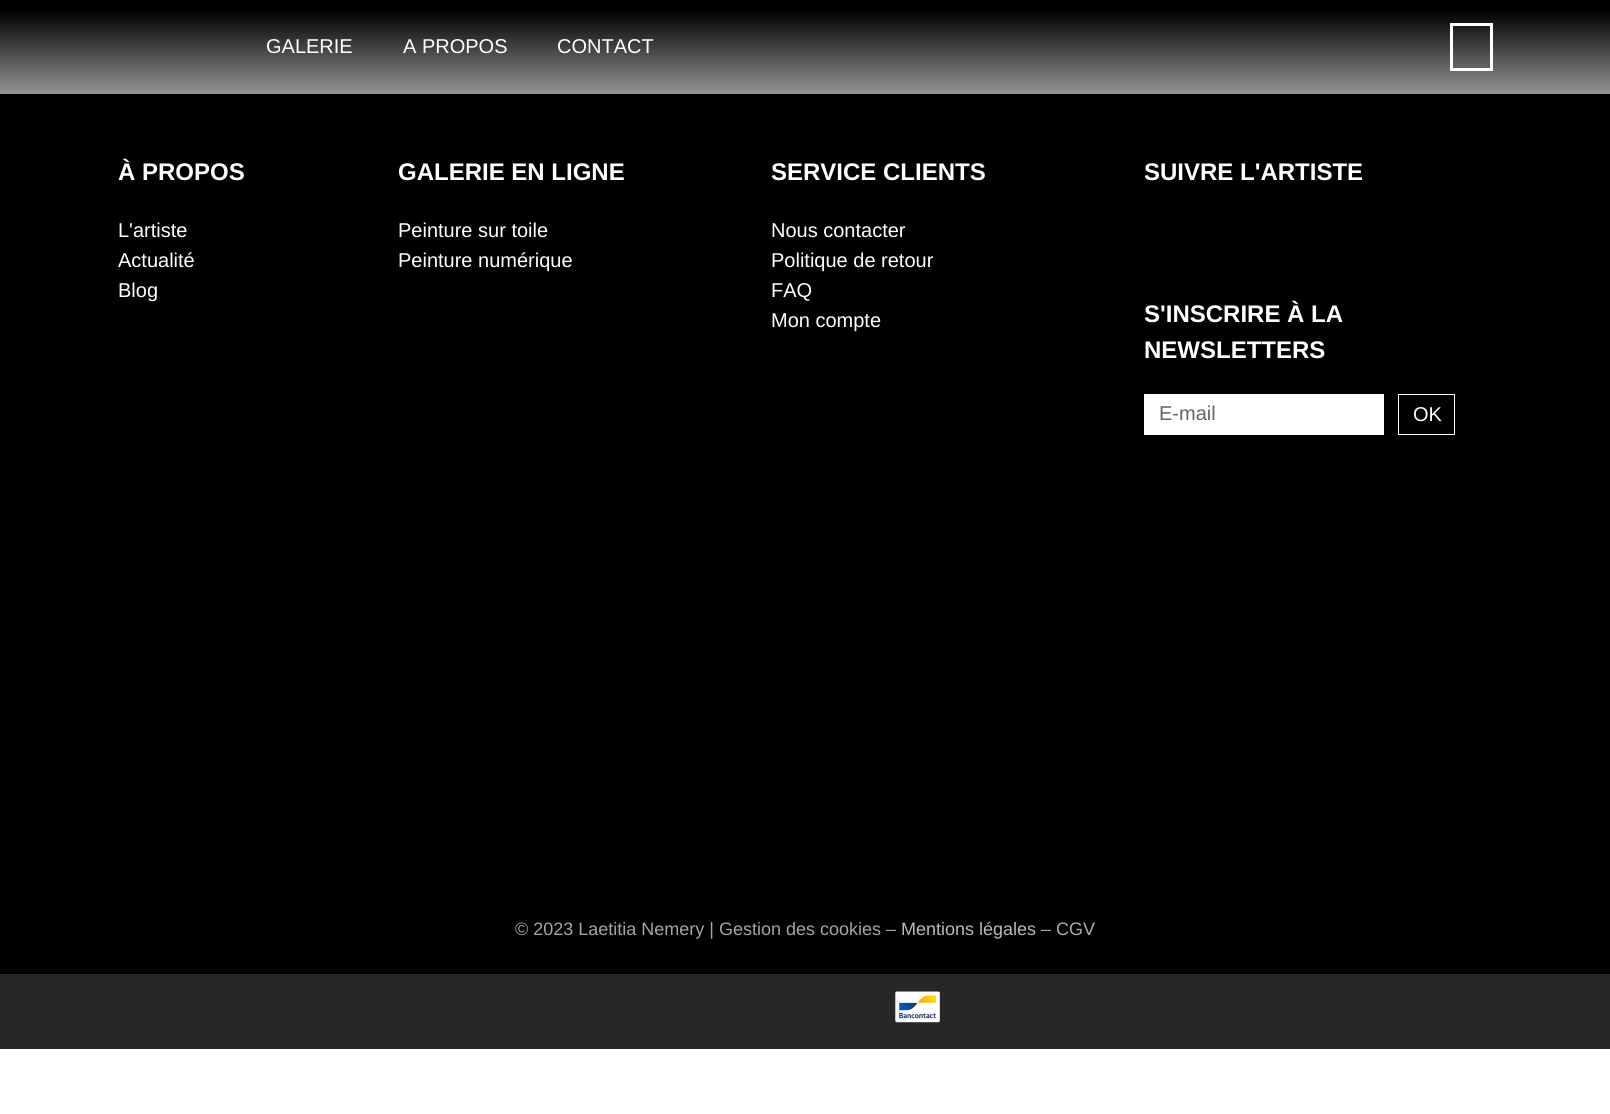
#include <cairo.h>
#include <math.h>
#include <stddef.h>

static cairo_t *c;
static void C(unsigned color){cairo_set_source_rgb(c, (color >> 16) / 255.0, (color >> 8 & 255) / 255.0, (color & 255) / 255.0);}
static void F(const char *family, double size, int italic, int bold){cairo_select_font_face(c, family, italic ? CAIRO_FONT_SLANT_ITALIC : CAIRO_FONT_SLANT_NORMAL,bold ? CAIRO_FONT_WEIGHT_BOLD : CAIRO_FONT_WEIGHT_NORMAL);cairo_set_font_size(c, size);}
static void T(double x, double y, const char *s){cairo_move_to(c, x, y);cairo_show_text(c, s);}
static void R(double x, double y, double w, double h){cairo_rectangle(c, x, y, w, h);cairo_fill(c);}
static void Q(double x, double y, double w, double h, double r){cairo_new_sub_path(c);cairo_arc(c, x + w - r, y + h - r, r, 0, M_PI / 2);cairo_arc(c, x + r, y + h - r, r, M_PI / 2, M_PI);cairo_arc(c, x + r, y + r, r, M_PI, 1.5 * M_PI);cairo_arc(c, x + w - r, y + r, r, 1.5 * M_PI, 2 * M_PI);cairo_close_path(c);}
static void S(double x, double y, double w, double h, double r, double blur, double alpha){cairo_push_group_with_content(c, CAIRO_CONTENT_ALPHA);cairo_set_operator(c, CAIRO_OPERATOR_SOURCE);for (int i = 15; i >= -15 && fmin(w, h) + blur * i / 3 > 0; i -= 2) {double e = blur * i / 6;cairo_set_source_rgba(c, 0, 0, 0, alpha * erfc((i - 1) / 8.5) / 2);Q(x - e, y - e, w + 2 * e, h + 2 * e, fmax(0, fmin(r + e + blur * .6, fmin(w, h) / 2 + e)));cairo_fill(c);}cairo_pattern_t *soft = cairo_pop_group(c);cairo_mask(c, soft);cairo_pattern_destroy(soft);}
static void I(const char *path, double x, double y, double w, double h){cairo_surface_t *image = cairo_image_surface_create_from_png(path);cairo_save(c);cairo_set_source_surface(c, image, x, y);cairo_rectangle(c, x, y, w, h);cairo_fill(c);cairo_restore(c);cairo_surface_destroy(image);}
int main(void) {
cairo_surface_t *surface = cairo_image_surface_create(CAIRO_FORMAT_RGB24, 1610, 1114);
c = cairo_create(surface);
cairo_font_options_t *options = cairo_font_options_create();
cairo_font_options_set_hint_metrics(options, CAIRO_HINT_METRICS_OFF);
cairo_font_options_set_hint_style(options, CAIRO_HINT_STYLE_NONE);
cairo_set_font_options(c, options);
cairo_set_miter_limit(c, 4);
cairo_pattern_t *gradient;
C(0xffffff);
cairo_paint(c);
C(0x000000);
R(0,94,1610,880);
cairo_save(c);
cairo_set_fill_rule(c,CAIRO_FILL_RULE_EVEN_ODD);
cairo_new_path(c);
cairo_move_to(c,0,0);
cairo_line_to(c,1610,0);
cairo_line_to(c,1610,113);
cairo_line_to(c,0,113);
cairo_close_path(c);
cairo_move_to(c,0,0);
cairo_line_to(c,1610,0);
cairo_line_to(c,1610,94);
cairo_line_to(c,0,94);
cairo_close_path(c);
cairo_clip(c);
C(0x000000);
S(0,0,1610,94,0,6,.5);
cairo_restore(c);
cairo_set_source_rgba(c,0,0,0,0.42);
R(0,11,1610,83);
gradient = cairo_pattern_create_linear(805,0,805,94);
cairo_pattern_add_color_stop_rgba(gradient,.11,0,0,0,1);
cairo_pattern_add_color_stop_rgba(gradient,1,0,0,0,0);
cairo_set_source(c,gradient);
cairo_pattern_destroy(gradient);
R(0,0,1610,92);
F("Liberation Sans",20,0,0);
C(0xffffff);
T(266,53,"GALERIE");
T(403,53,"A PROPOS");
T(557,53,"CONTACT");
cairo_rectangle(c,1451.5,24.5,40,45);
cairo_set_line_width(c,3);
cairo_stroke(c);
F("Liberation Sans",24,0,1);
T(118,180,"À PROPOS");
F("Liberation Sans",20,0,0);
T(118,237,"L'artiste");
T(118,267,"Actualité");
T(118,297,"Blog");
F("Liberation Sans",24,0,1);
T(398,180,"GALERIE EN LIGNE");
F("Liberation Sans",20,0,0);
T(398,237,"Peinture sur toile");
T(398,267,"Peinture numérique");
F("Liberation Sans",24,0,1);
T(771,180,"SERVICE CLIENTS");
F("Liberation Sans",20,0,0);
T(771,237,"Nous contacter");
T(771,267,"Politique de retour");
T(771,297,"FAQ");
T(771,327,"Mon compte");
F("Liberation Sans",24,0,1);
T(1144,180,"SUIVRE L'ARTISTE");
T(1144,322,"S'INSCRIRE À LA");
T(1144,358,"NEWSLETTERS");
R(1144,394,240,41);
F("Liberation Sans",20,0,0);
C(0x666666);
T(1159,420,"E-mail");
cairo_rectangle(c,1398.5,394.5,56,40);
C(0xffffff);
cairo_set_line_width(c,1);
cairo_stroke(c);
T(1413,421,"OK");
F("Liberation Sans",18,0,0);
C(0xa5a5a5);
T(515,935,"© 2023 Laetitia Nemery |");
T(719,935,"Gestion des cookies");
T(886,935,"–");
C(0xbababa);
T(901,935,"Mentions légales");
C(0xa5a5a5);
T(1041,935,"–");
C(0xadadad);
T(1056,935,"CGV");
C(0x272727);
R(0,974,1610,75);
I("1.png",895,991,45,32);
cairo_surface_write_to_png(surface, "o.png");
cairo_font_options_destroy(options);
cairo_destroy(c);
cairo_surface_destroy(surface);
return 0;
}
